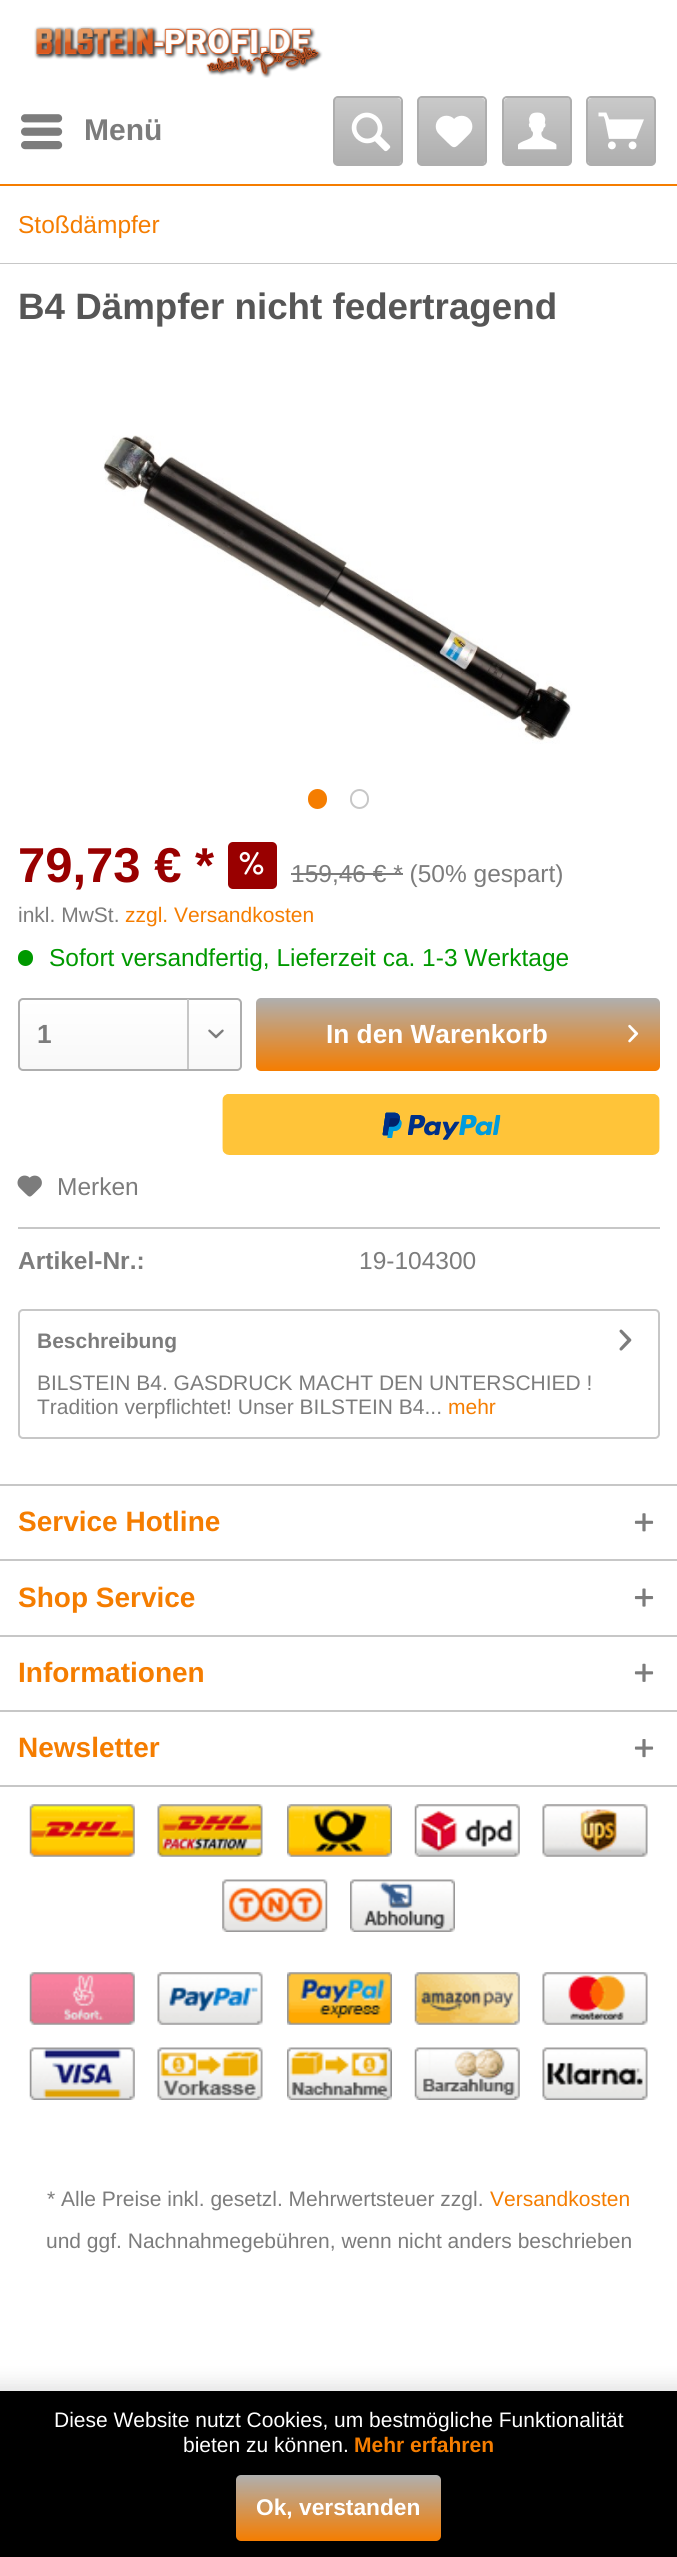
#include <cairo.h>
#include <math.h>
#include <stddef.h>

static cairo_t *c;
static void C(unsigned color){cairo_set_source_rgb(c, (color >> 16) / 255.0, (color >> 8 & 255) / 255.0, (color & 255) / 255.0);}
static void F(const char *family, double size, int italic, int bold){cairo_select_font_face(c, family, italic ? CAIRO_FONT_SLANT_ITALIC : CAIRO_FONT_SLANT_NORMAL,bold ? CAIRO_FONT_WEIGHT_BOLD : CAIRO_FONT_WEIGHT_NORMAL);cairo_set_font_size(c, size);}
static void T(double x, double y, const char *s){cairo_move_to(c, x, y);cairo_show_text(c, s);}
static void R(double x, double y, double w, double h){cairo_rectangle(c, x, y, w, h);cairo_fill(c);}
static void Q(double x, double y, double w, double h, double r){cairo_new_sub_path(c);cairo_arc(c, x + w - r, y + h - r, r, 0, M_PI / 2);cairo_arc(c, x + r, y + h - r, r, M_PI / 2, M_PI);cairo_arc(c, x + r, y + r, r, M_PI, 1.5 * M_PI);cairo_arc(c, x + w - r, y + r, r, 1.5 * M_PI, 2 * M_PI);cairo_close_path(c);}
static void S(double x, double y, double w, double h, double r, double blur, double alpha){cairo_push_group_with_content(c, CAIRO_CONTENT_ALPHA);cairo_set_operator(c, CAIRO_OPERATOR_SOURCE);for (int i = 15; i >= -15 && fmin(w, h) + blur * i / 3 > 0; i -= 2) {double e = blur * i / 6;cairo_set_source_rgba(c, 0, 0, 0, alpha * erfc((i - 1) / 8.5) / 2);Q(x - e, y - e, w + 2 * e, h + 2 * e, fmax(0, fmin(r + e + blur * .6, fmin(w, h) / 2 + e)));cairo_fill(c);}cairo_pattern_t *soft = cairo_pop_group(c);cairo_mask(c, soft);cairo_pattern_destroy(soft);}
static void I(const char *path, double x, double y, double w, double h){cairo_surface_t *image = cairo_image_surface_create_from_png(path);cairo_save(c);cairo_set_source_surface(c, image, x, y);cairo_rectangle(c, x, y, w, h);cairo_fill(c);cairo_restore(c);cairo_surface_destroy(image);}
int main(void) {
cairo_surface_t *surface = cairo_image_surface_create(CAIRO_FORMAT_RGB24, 677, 2557);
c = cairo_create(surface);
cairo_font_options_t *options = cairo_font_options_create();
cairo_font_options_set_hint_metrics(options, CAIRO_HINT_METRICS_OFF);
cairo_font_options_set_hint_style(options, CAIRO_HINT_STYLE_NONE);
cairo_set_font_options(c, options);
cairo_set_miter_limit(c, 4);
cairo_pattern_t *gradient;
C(0xffffff);
cairo_paint(c);
C(0xf57d00);
R(0,184,677,2);
I("1.png",34,26,289,52);
I("2.png",21,114,42,36);
F("Liberation Sans",30,0,1);
C(0x7c7c7c);
T(84,140,"Menü");
gradient = cairo_pattern_create_linear(368,98,368,165);
cairo_pattern_add_color_stop_rgba(gradient,0,0.788,0.788,0.788,1);
cairo_pattern_add_color_stop_rgba(gradient,1,0.682,0.682,0.682,1);
cairo_set_source(c,gradient);
cairo_pattern_destroy(gradient);
Q(334,98,67,67,4);
cairo_fill(c);
Q(334,97,68,68,4);
C(0xaeaeae);
cairo_stroke(c);
I("3.png",351,112,40,40);
gradient = cairo_pattern_create_linear(452,98,452,165);
cairo_pattern_add_color_stop_rgba(gradient,0,0.788,0.788,0.788,1);
cairo_pattern_add_color_stop_rgba(gradient,1,0.682,0.682,0.682,1);
cairo_set_source(c,gradient);
cairo_pattern_destroy(gradient);
Q(418,98,67,67,4);
cairo_fill(c);
Q(418,97,68,68,4);
C(0xaeaeae);
cairo_stroke(c);
I("4.png",435,115,38,33);
gradient = cairo_pattern_create_linear(537,98,537,165);
cairo_pattern_add_color_stop_rgba(gradient,0,0.788,0.788,0.788,1);
cairo_pattern_add_color_stop_rgba(gradient,1,0.682,0.682,0.682,1);
cairo_set_source(c,gradient);
cairo_pattern_destroy(gradient);
Q(504,98,67,67,4);
cairo_fill(c);
Q(503,97,68,68,4);
C(0xaeaeae);
cairo_stroke(c);
I("5.png",518,112,39,38);
gradient = cairo_pattern_create_linear(621,98,621,165);
cairo_pattern_add_color_stop_rgba(gradient,0,0.788,0.788,0.788,1);
cairo_pattern_add_color_stop_rgba(gradient,1,0.682,0.682,0.682,1);
cairo_set_source(c,gradient);
cairo_pattern_destroy(gradient);
Q(588,98,67,67,4);
cairo_fill(c);
Q(587,97,68,68,4);
C(0xaeaeae);
cairo_stroke(c);
I("6.png",598,112,46,38);
C(0xc7c7c7);
R(0,263,677,1);
F("Liberation Sans",24.5,0,0);
C(0xf57d00);
T(18,233,"Stoßdämpfer");
F("Liberation Sans",36.75,0,1);
C(0x565656);
T(18,319,"B4 Dämpfer nicht federtragend");
I("7.png",103,435,469,309);
C(0xf57d00);
Q(309,790,17,18,8.5);
cairo_fill_preserve(c);
cairo_stroke(c);
Q(351,790,17,18,8.5);
C(0xc7c7c7);
cairo_stroke(c);
F("Liberation Sans",49,0,1);
C(0x990000);
T(18,882,"79,73 € *");
Q(228,842,49,47,5);
cairo_fill(c);
I("8.png",239,851,25,24);
F("Liberation Sans",24.5,0,0);
C(0x7c7c7c);
T(291,882,"159,46 € * (50% gespart)");
R(291,873,112,2);
F("Liberation Sans",21,0,0);
T(18,922,"inkl. MwSt.");
C(0xf57d00);
T(125,922,"zzgl. Versandkosten");
C(0x009900);
Q(18,950,15,16,7.5);
cairo_fill(c);
F("Liberation Sans",24.5,0,0);
T(49,966,"Sofort versandfertig, Lieferzeit ca. 1-3 Werktage");
gradient = cairo_pattern_create_linear(130,999,130,1069);
cairo_pattern_add_color_stop_rgba(gradient,0,1,1,1,1);
cairo_pattern_add_color_stop_rgba(gradient,1,0.973,0.973,0.973,1);
cairo_set_source(c,gradient);
cairo_pattern_destroy(gradient);
Q(19,999,221,70,4);
cairo_fill(c);
Q(19,999,222,71,4);
C(0xaeaeae);
cairo_stroke(c);
F("Liberation Sans",26.25,0,1);
C(0x7c7c7c);
T(37,1043,"1");
C(0xc7c7c7);
R(187,999,2,70);
I("9.png",208,1029,16,10);
gradient = cairo_pattern_create_linear(458,998,458,1071);
cairo_pattern_add_color_stop_rgba(gradient,0,0.686,0.686,0.686,1);
cairo_pattern_add_color_stop_rgba(gradient,1,0.961,0.49,0,1);
cairo_set_source(c,gradient);
cairo_pattern_destroy(gradient);
Q(256,998,404,73,5);
cairo_fill(c);
C(0xffffff);
T(326,1043,"In den Warenkorb");
I("10.png",628,1024,11,19);
I("11.png",222,1094,438,61);
C(0xc7c7c7);
R(18,1227,642,2);
I("12.png",17,1175,25,22);
F("Liberation Sans",24.5,0,0);
C(0x7c7c7c);
T(57,1195,"Merken");
F("Liberation Sans",24.5,0,1);
T(18,1269,"Artikel-Nr.:");
F("Liberation Sans",24.5,0,0);
T(359,1269,"19-104300");
Q(19,1310,640,128,4);
C(0xc7c7c7);
cairo_stroke(c);
F("Liberation Sans",21,0,1);
C(0x7c7c7c);
T(37,1348,"Beschreibung");
I("13.png",619,1329,13,22);
F("Liberation Sans",21,0,0);
T(37,1390,"BILSTEIN B4. GASDRUCK MACHT DEN UNTERSCHIED !");
T(37,1414,"Tradition verpflichtet! Unser BILSTEIN B4...");
C(0xf57d00);
T(448,1414,"mehr");
C(0xc7c7c7);
R(0,1484,677,2);
F("Liberation Sans",28,0,1);
C(0xf57d00);
T(18,1531,"Service Hotline");
I("14.png",634,1513,20,19);
C(0xc7c7c7);
R(0,1559,677,2);
C(0xf57d00);
T(18,1607,"Shop Service");
I("15.png",634,1588,20,19);
C(0xc7c7c7);
R(0,1635,677,2);
C(0xf57d00);
T(18,1682,"Informationen");
I("16.png",634,1663,20,19);
C(0xc7c7c7);
R(0,1710,677,2);
R(0,1785,677,2);
C(0xf57d00);
T(18,1757,"Newsletter");
I("17.png",634,1739,20,19);
I("18.png",29,1804,106,53);
I("19.png",157,1804,106,53);
I("20.png",287,1804,105,53);
I("21.png",414,1804,106,53);
I("22.png",542,1804,106,53);
I("23.png",222,1879,106,53);
I("24.png",350,1879,105,53);
I("25.png",29,1972,106,53);
I("26.png",157,1972,106,53);
I("27.png",287,1972,105,53);
I("28.png",414,1972,106,53);
I("29.png",542,1972,106,53);
I("30.png",29,2047,106,53);
I("31.png",157,2047,106,53);
I("32.png",287,2047,105,53);
I("33.png",414,2047,106,53);
I("34.png",542,2047,106,53);
F("Liberation Sans",21,0,0);
C(0x7c7c7c);
T(47,2206,"* Alle Preise inkl. gesetzl. Mehrwertsteuer zzgl.");
C(0xf57d00);
T(490,2206,"Versandkosten");
C(0x7c7c7c);
T(46,2248,"und ggf. Nachnahmegebühren, wenn nicht anders beschrieben");
C(0x000000);
S(-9,2382,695,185,0,9,.1);
C(0x000000);
R(0,2391,677,166);
C(0xffffff);
T(54,2427,"Diese Website nutzt Cookies, um bestmögliche Funktionalität");
T(183,2452,"bieten zu können.");
F("Liberation Sans",21,0,1);
C(0xf57d00);
T(354,2452,"Mehr erfahren");
gradient = cairo_pattern_create_linear(339,2475,339,2541);
cairo_pattern_add_color_stop_rgba(gradient,0,0.686,0.686,0.686,1);
cairo_pattern_add_color_stop_rgba(gradient,1,0.961,0.49,0,1);
cairo_set_source(c,gradient);
cairo_pattern_destroy(gradient);
Q(236,2475,205,66,5);
cairo_fill(c);
F("Liberation Sans",22.75,0,1);
C(0xffffff);
T(256,2515,"Ok, verstanden");
cairo_surface_write_to_png(surface, "o.png");
cairo_font_options_destroy(options);
cairo_destroy(c);
cairo_surface_destroy(surface);
return 0;
}
